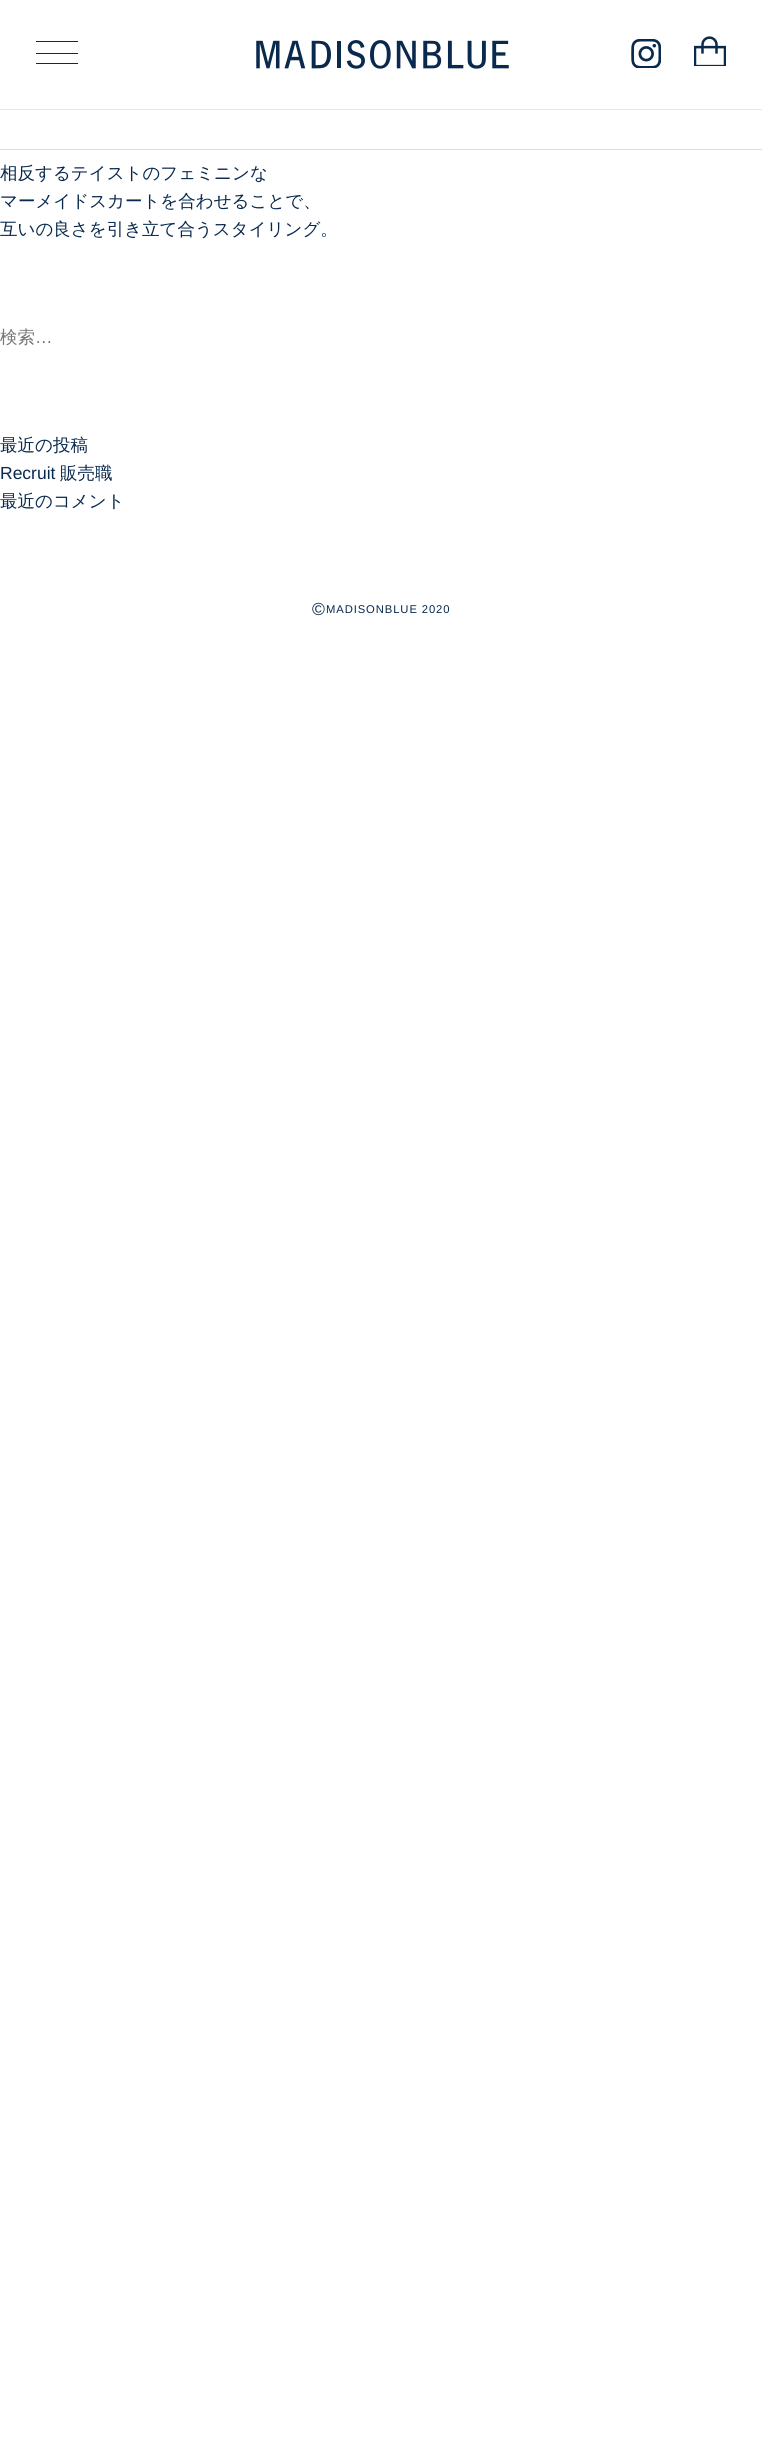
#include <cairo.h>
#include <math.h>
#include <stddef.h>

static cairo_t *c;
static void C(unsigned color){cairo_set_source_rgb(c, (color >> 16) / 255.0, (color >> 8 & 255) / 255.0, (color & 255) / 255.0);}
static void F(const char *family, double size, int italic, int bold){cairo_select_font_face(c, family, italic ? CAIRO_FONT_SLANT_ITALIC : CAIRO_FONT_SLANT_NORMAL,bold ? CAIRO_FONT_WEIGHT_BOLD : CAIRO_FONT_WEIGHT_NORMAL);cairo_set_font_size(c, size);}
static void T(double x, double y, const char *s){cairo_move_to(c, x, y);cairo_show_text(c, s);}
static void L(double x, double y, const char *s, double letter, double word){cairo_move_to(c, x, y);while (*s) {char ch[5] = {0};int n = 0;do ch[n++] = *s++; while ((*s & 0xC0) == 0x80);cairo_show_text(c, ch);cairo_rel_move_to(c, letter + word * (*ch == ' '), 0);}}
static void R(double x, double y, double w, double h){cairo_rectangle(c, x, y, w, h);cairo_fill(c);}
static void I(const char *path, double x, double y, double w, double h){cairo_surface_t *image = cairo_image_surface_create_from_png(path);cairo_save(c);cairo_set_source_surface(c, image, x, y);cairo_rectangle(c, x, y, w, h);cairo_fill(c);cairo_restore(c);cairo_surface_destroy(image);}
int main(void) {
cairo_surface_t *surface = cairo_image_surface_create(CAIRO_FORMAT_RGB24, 762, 2443);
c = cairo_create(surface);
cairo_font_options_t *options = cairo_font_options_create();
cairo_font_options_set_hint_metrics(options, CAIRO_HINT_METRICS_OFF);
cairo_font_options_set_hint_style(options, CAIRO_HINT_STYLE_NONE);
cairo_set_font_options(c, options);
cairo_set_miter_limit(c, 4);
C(0xffffff);
cairo_paint(c);
C(0xe8e8e8);
R(0,109,762,1);
C(0x09294d);
R(36,41,42,1);
R(36,53,42,1);
R(36,63,42,1);
I("1.png",256,40,253,29);
I("2.png",631,39,30,29);
I("3.png",694,36,32,30);
C(0xdddddd);
R(0,149,762,1);
F("WenQuanYi Zen Hei Medium",17.5,0,0);
C(0x08294d);
T(0,179,"相反するテイストのフェミニンな");
T(0,207,"マーメイドスカートを合わせることで、");
T(0,235,"互いの良さを引き立て合うスタイリング。");
C(0x757575);
T(0,343,"検索");
F("Liberation Sans",17.5,0,0);
T(35,343,"…");
F("WenQuanYi Zen Hei Medium",17.5,0,0);
C(0x08294d);
T(0,451,"最近の投稿");
F("Liberation Sans",17.5,0,0);
T(0,479,"Recruit");
F("WenQuanYi Zen Hei Medium",17.5,0,0);
T(60,479,"販売職");
T(0,507,"最近のコメント");
F("Liberation Sans",17.5,0,0);
L(312,615,"©",.9,0);
F("Liberation Sans",11.25,0,0);
L(326,613,"MADISONBLUE 2020",.9,0);
cairo_surface_write_to_png(surface, "o.png");
cairo_font_options_destroy(options);
cairo_destroy(c);
cairo_surface_destroy(surface);
return 0;
}
